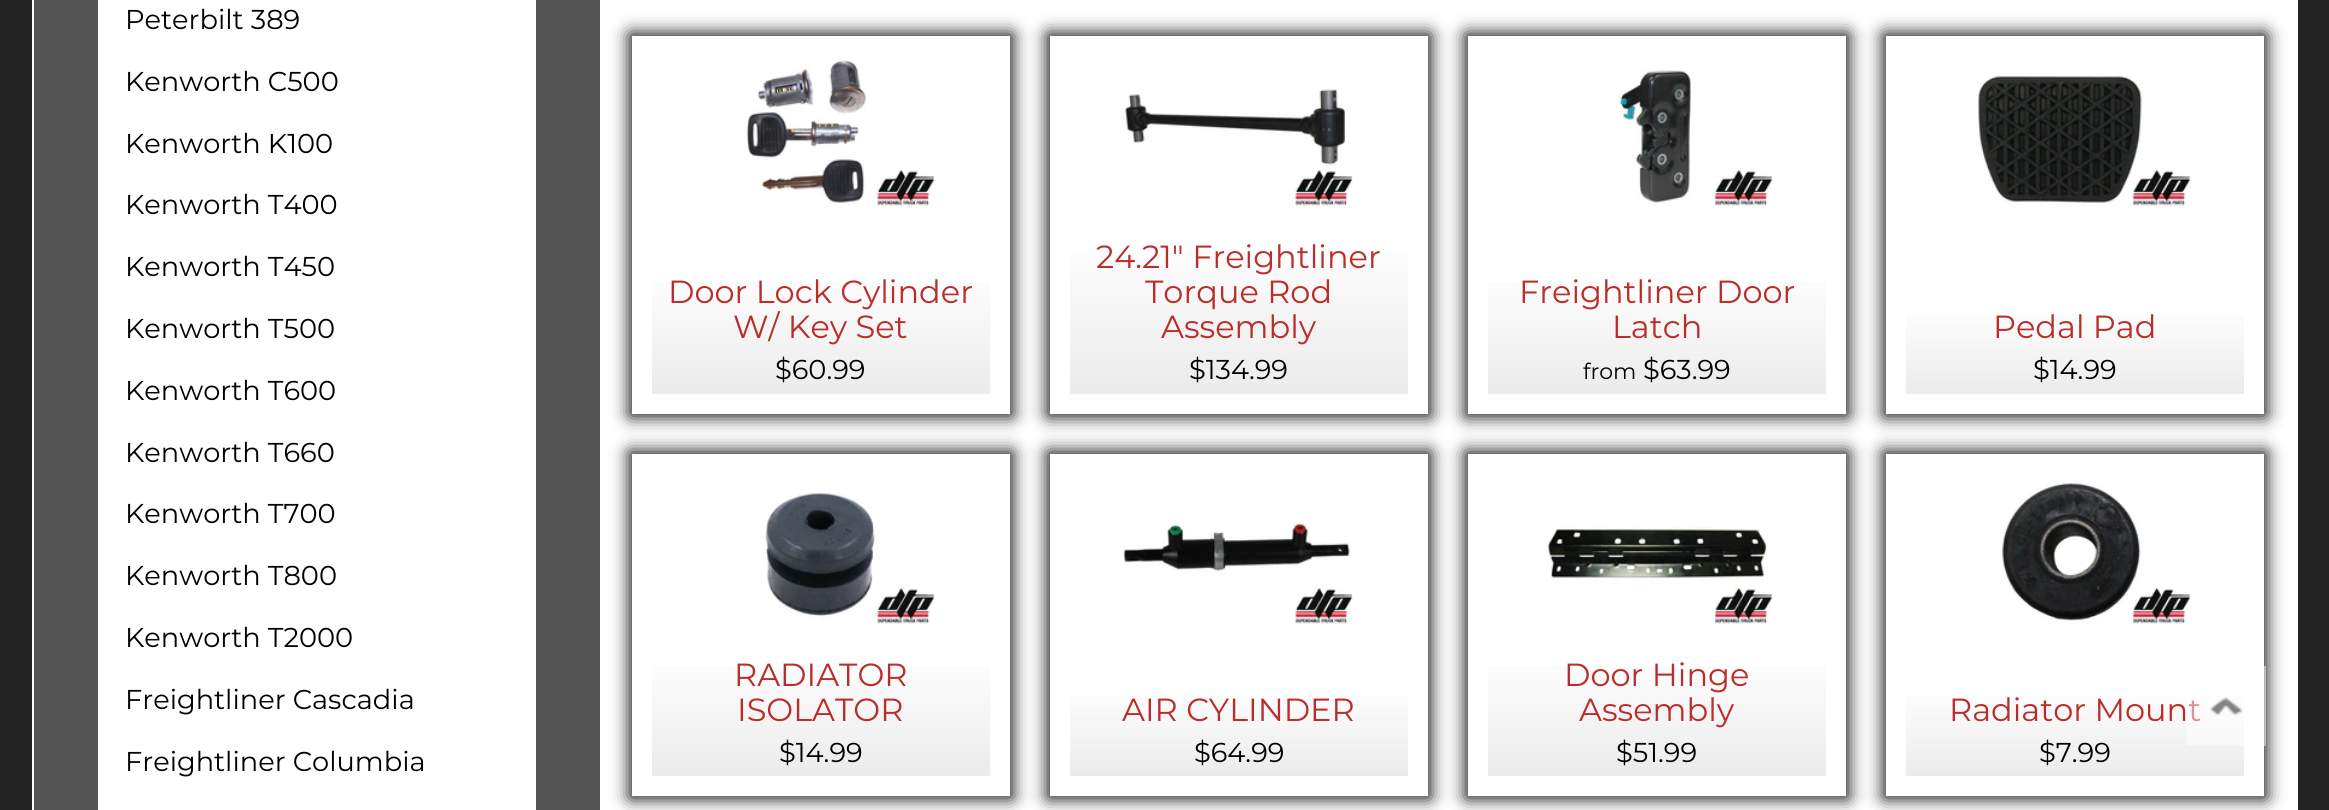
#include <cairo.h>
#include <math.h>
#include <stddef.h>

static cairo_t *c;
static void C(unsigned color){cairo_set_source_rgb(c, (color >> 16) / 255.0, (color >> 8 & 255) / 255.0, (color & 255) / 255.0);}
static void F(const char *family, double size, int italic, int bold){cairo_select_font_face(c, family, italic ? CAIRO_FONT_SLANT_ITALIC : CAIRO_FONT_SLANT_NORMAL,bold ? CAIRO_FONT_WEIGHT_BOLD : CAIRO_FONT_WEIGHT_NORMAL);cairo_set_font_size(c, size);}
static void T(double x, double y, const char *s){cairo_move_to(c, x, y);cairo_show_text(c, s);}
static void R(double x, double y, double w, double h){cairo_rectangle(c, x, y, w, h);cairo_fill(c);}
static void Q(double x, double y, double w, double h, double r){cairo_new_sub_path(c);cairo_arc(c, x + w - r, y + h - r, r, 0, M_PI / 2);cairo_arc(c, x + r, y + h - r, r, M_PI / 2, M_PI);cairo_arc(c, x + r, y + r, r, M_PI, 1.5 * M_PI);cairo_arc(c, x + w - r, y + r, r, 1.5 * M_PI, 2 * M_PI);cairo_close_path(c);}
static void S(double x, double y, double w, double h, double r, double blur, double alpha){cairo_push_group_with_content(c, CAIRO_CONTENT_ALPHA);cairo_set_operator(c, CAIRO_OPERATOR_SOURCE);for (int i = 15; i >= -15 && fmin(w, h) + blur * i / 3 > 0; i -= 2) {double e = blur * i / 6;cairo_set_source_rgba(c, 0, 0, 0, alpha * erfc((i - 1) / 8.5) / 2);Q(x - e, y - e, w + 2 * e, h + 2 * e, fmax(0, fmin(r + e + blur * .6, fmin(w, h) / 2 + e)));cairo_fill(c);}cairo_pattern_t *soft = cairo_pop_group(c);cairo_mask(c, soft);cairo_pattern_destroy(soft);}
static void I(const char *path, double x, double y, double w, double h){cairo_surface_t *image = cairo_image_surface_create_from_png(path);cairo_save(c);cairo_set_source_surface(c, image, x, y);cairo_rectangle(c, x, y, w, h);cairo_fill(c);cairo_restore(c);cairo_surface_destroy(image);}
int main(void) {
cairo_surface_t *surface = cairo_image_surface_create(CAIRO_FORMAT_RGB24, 2329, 810);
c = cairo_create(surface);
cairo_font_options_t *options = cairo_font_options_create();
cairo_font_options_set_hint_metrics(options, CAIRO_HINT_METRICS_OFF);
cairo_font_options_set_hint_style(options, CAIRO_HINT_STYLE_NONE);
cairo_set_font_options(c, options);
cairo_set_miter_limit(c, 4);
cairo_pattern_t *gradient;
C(0x222222);
cairo_paint(c);
C(0xffffff);
R(32,0,2266,810);
C(0x555555);
R(34,0,566,810);
C(0xffffff);
R(98,0,438,810);
F("Montserrat",27.25,0,0);
C(0x000000);
T(125,29,"Peterbilt 389");
T(125,91,"Kenworth C500");
T(125,153,"Kenworth K100");
T(125,214,"Kenworth T400");
T(125,276,"Kenworth T450");
T(125,338,"Kenworth T500");
T(125,400,"Kenworth T600");
T(125,462,"Kenworth T660");
T(125,523,"Kenworth T700");
T(125,585,"Kenworth T800");
T(125,647,"Kenworth T2000");
T(125,709,"Freightliner Cascadia");
T(125,771,"Freightliner Columbia");
cairo_save(c);
cairo_set_fill_rule(c,CAIRO_FILL_RULE_EVEN_ODD);
cairo_new_path(c);
cairo_move_to(c,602,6);
cairo_line_to(c,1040,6);
cairo_line_to(c,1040,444);
cairo_line_to(c,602,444);
cairo_close_path(c);
cairo_move_to(c,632,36);
cairo_line_to(c,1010,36);
cairo_line_to(c,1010,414);
cairo_line_to(c,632,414);
cairo_close_path(c);
cairo_clip(c);
C(0x000000);
S(630,34,382,382,0,9,1);
cairo_restore(c);
I("1.png",746,60,189,146);
gradient = cairo_pattern_create_linear(821,266,821,394);
cairo_pattern_add_color_stop_rgba(gradient,0,1,1,1,1);
cairo_pattern_add_color_stop_rgba(gradient,1,0.922,0.922,0.922,1);
cairo_set_source(c,gradient);
cairo_pattern_destroy(gradient);
R(652,282,338,112);
F("Montserrat",32,0,0);
C(0xba2d2a);
T(668,303,"Door Lock Cylinder");
T(733,338,"W/ Key Set");
F("Montserrat",27.25,0,0);
C(0x000000);
T(775,379,"$60.99");
cairo_save(c);
cairo_set_fill_rule(c,CAIRO_FILL_RULE_EVEN_ODD);
cairo_new_path(c);
cairo_move_to(c,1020,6);
cairo_line_to(c,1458,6);
cairo_line_to(c,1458,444);
cairo_line_to(c,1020,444);
cairo_close_path(c);
cairo_move_to(c,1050,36);
cairo_line_to(c,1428,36);
cairo_line_to(c,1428,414);
cairo_line_to(c,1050,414);
cairo_close_path(c);
cairo_clip(c);
C(0x000000);
S(1048,34,382,382,0,9,1);
cairo_restore(c);
I("2.png",1118,89,235,117);
gradient = cairo_pattern_create_linear(1239,232,1239,394);
cairo_pattern_add_color_stop_rgba(gradient,0,1,1,1,1);
cairo_pattern_add_color_stop_rgba(gradient,1,0.922,0.922,0.922,1);
cairo_set_source(c,gradient);
cairo_pattern_destroy(gradient);
R(1070,252,338,142);
F("Montserrat",32,0,0);
C(0xba2d2a);
T(1096,268,"24.21\" Freightliner");
T(1145,303,"Torque Rod");
T(1161,338,"Assembly");
F("Montserrat",27.25,0,0);
C(0x000000);
T(1189,379,"$134.99");
cairo_save(c);
cairo_set_fill_rule(c,CAIRO_FILL_RULE_EVEN_ODD);
cairo_new_path(c);
cairo_move_to(c,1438,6);
cairo_line_to(c,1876,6);
cairo_line_to(c,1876,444);
cairo_line_to(c,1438,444);
cairo_close_path(c);
cairo_move_to(c,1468,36);
cairo_line_to(c,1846,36);
cairo_line_to(c,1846,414);
cairo_line_to(c,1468,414);
cairo_close_path(c);
cairo_clip(c);
C(0x000000);
S(1466,34,382,382,0,9,1);
cairo_restore(c);
I("3.png",1618,70,155,136);
gradient = cairo_pattern_create_linear(1657,266,1657,394);
cairo_pattern_add_color_stop_rgba(gradient,0,1,1,1,1);
cairo_pattern_add_color_stop_rgba(gradient,1,0.922,0.922,0.922,1);
cairo_set_source(c,gradient);
cairo_pattern_destroy(gradient);
R(1488,282,338,112);
F("Montserrat",32,0,0);
C(0xba2d2a);
T(1519,303,"Freightliner Door");
T(1612,338,"Latch");
F("Montserrat",22,0,0);
C(0x000000);
T(1583,379,"from");
F("Montserrat",27.25,0,0);
T(1643,379,"$63.99");
cairo_save(c);
cairo_set_fill_rule(c,CAIRO_FILL_RULE_EVEN_ODD);
cairo_new_path(c);
cairo_move_to(c,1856,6);
cairo_line_to(c,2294,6);
cairo_line_to(c,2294,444);
cairo_line_to(c,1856,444);
cairo_close_path(c);
cairo_move_to(c,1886,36);
cairo_line_to(c,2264,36);
cairo_line_to(c,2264,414);
cairo_line_to(c,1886,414);
cairo_close_path(c);
cairo_clip(c);
C(0x000000);
S(1884,34,382,382,0,9,1);
cairo_restore(c);
I("4.png",1978,75,213,131);
gradient = cairo_pattern_create_linear(2075,302,2075,394);
cairo_pattern_add_color_stop_rgba(gradient,0,1,1,1,1);
cairo_pattern_add_color_stop_rgba(gradient,1,0.922,0.922,0.922,1);
cairo_set_source(c,gradient);
cairo_pattern_destroy(gradient);
R(1906,314,338,80);
F("Montserrat",32,0,0);
C(0xba2d2a);
T(1993,338,"Pedal Pad");
F("Montserrat",27.25,0,0);
C(0x000000);
T(2033,379,"$14.99");
cairo_save(c);
cairo_set_fill_rule(c,CAIRO_FILL_RULE_EVEN_ODD);
cairo_new_path(c);
cairo_move_to(c,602,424);
cairo_line_to(c,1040,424);
cairo_line_to(c,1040,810);
cairo_line_to(c,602,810);
cairo_close_path(c);
cairo_move_to(c,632,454);
cairo_line_to(c,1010,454);
cairo_line_to(c,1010,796);
cairo_line_to(c,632,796);
cairo_close_path(c);
cairo_clip(c);
C(0x000000);
S(630,452,382,346,0,9,1);
cairo_restore(c);
I("5.png",765,493,170,131);
gradient = cairo_pattern_create_linear(821,650,821,776);
cairo_pattern_add_color_stop_rgba(gradient,0,1,1,1,1);
cairo_pattern_add_color_stop_rgba(gradient,1,0.922,0.922,0.922,1);
cairo_set_source(c,gradient);
cairo_pattern_destroy(gradient);
R(652,666,338,110);
F("Montserrat",32,0,0);
C(0xba2d2a);
T(734,686,"RADIATOR");
T(737,721,"ISOLATOR");
F("Montserrat",27.25,0,0);
C(0x000000);
T(779,762,"$14.99");
cairo_save(c);
cairo_set_fill_rule(c,CAIRO_FILL_RULE_EVEN_ODD);
cairo_new_path(c);
cairo_move_to(c,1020,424);
cairo_line_to(c,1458,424);
cairo_line_to(c,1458,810);
cairo_line_to(c,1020,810);
cairo_close_path(c);
cairo_move_to(c,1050,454);
cairo_line_to(c,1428,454);
cairo_line_to(c,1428,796);
cairo_line_to(c,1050,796);
cairo_close_path(c);
cairo_clip(c);
C(0x000000);
S(1048,452,382,346,0,9,1);
cairo_restore(c);
I("6.png",1123,522,230,102);
gradient = cairo_pattern_create_linear(1239,684,1239,776);
cairo_pattern_add_color_stop_rgba(gradient,0,1,1,1,1);
cairo_pattern_add_color_stop_rgba(gradient,1,0.922,0.922,0.922,1);
cairo_set_source(c,gradient);
cairo_pattern_destroy(gradient);
R(1070,696,338,80);
F("Montserrat",32,0,0);
C(0xba2d2a);
T(1122,721,"AIR CYLINDER");
F("Montserrat",27.25,0,0);
C(0x000000);
T(1194,762,"$64.99");
cairo_save(c);
cairo_set_fill_rule(c,CAIRO_FILL_RULE_EVEN_ODD);
cairo_new_path(c);
cairo_move_to(c,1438,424);
cairo_line_to(c,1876,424);
cairo_line_to(c,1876,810);
cairo_line_to(c,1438,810);
cairo_close_path(c);
cairo_move_to(c,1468,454);
cairo_line_to(c,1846,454);
cairo_line_to(c,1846,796);
cairo_line_to(c,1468,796);
cairo_close_path(c);
cairo_clip(c);
C(0x000000);
S(1466,452,382,346,0,9,1);
cairo_restore(c);
I("7.png",1546,527,227,97);
gradient = cairo_pattern_create_linear(1657,650,1657,776);
cairo_pattern_add_color_stop_rgba(gradient,0,1,1,1,1);
cairo_pattern_add_color_stop_rgba(gradient,1,0.922,0.922,0.922,1);
cairo_set_source(c,gradient);
cairo_pattern_destroy(gradient);
R(1488,666,338,110);
F("Montserrat",32,0,0);
C(0xba2d2a);
T(1564,686,"Door Hinge");
T(1579,721,"Assembly");
F("Montserrat",27.25,0,0);
C(0x000000);
T(1616,762,"$51.99");
cairo_save(c);
cairo_set_fill_rule(c,CAIRO_FILL_RULE_EVEN_ODD);
cairo_new_path(c);
cairo_move_to(c,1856,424);
cairo_line_to(c,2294,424);
cairo_line_to(c,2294,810);
cairo_line_to(c,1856,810);
cairo_close_path(c);
cairo_move_to(c,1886,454);
cairo_line_to(c,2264,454);
cairo_line_to(c,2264,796);
cairo_line_to(c,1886,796);
cairo_close_path(c);
cairo_clip(c);
C(0x000000);
S(1884,452,382,346,0,9,1);
cairo_restore(c);
I("8.png",2002,480,189,144);
gradient = cairo_pattern_create_linear(2075,684,2075,776);
cairo_pattern_add_color_stop_rgba(gradient,0,1,1,1,1);
cairo_pattern_add_color_stop_rgba(gradient,1,0.922,0.922,0.922,1);
cairo_set_source(c,gradient);
cairo_pattern_destroy(gradient);
R(1906,696,338,80);
F("Montserrat",32,0,0);
C(0xba2d2a);
T(1949,721,"Radiator Mount");
F("Montserrat",27.25,0,0);
C(0x000000);
T(2039,762,"$7.99");
I("9.png",2186,666,80,80);
cairo_surface_write_to_png(surface, "o.png");
cairo_font_options_destroy(options);
cairo_destroy(c);
cairo_surface_destroy(surface);
return 0;
}
